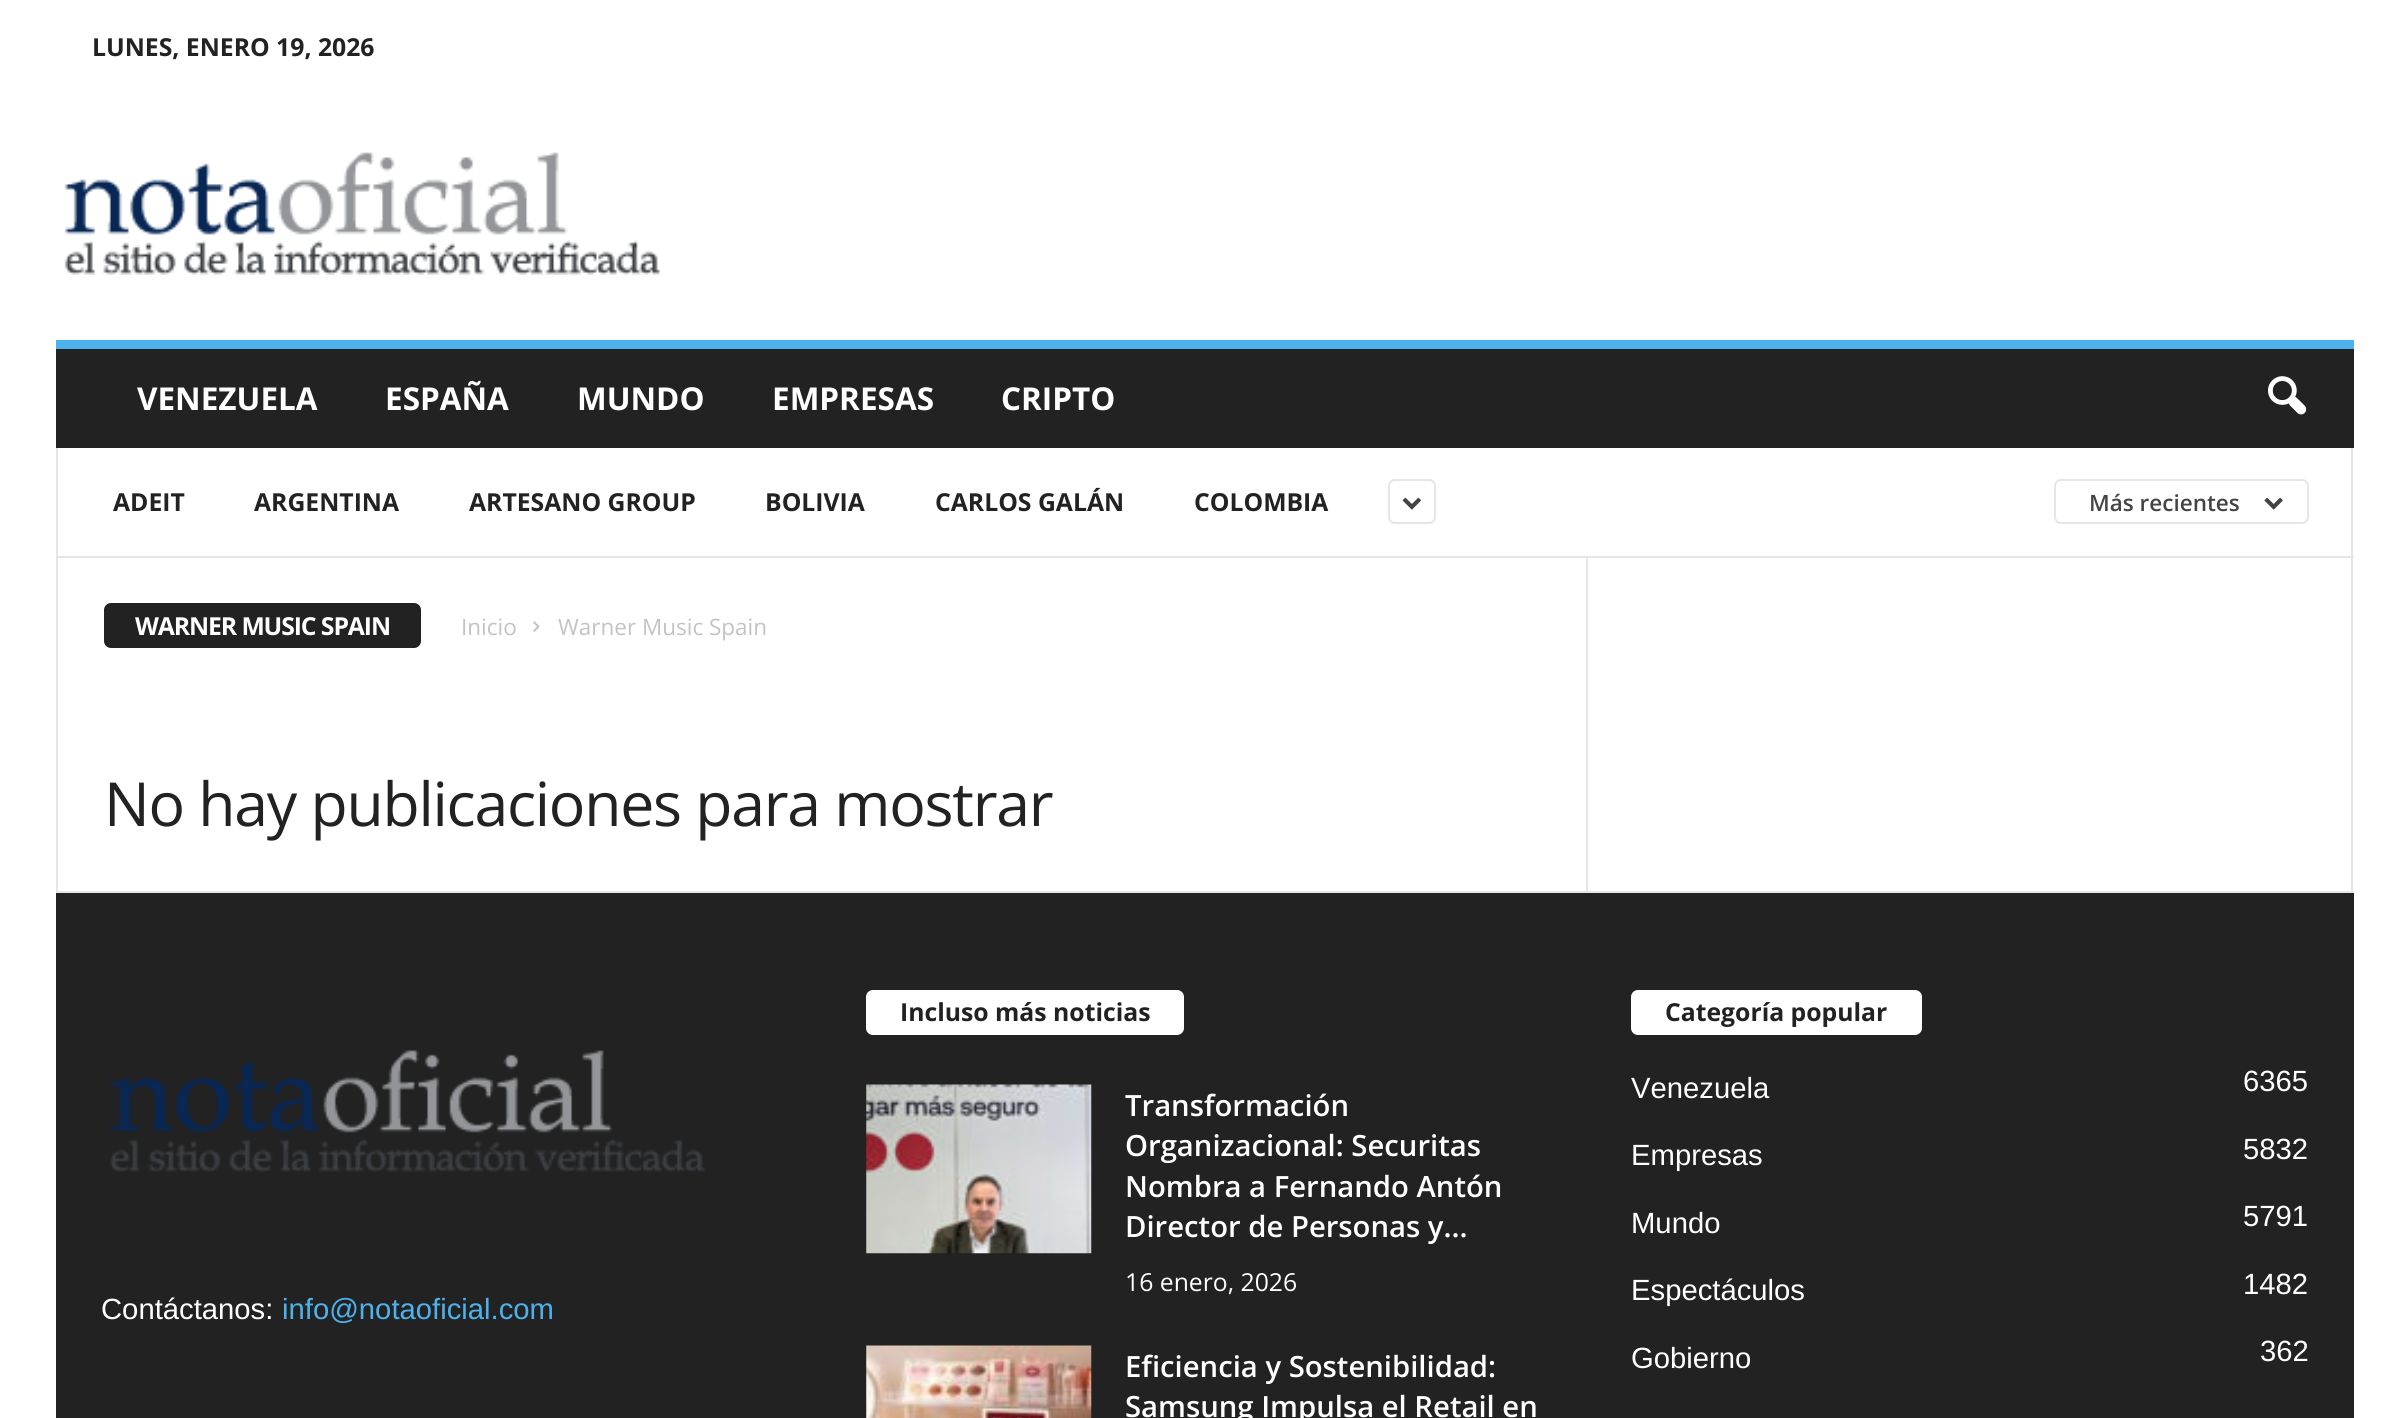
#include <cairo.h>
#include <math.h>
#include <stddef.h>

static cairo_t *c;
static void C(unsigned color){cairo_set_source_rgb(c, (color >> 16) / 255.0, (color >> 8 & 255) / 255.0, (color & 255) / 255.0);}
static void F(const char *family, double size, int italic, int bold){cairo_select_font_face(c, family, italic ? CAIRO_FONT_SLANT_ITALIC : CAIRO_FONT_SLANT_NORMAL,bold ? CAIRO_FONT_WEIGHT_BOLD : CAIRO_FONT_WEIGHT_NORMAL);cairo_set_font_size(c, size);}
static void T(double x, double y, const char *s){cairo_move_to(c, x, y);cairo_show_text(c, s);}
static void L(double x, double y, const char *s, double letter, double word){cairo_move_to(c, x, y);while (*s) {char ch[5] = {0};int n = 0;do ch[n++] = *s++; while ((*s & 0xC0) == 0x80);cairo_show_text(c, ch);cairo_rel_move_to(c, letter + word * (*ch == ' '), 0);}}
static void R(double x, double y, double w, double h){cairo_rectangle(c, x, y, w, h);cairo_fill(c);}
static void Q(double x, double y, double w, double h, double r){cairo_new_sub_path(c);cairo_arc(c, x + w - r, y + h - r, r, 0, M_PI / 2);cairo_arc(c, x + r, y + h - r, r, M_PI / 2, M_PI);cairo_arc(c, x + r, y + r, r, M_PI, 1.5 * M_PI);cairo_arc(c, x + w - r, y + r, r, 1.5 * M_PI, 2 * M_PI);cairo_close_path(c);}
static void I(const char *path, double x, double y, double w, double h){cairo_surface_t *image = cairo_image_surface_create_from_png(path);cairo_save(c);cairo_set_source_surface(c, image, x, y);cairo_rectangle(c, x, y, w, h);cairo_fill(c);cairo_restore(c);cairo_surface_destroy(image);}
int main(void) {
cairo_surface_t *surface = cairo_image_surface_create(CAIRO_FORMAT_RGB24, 2408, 1418);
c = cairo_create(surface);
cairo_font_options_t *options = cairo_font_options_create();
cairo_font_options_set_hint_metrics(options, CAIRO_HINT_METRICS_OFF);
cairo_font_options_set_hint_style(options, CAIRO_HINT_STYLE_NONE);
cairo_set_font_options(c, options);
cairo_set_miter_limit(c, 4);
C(0xffffff);
cairo_paint(c);
F("Open Sans",24.75,0,1);
C(0x222222);
T(92,56,"LUNES, ENERO 19, 2026");
I("1.png",64,152,596,123);
R(56,349,2298,99);
C(0x4db2ec);
R(56,340,2298,9);
F("Open Sans",31.5,0,1);
C(0xffffff);
T(137,410,"VENEZUELA");
T(385,410,"ESPAÑA");
T(577,410,"MUNDO");
T(772,410,"EMPRESAS");
T(1001,410,"CRIPTO");
I("2.png",2268,376,39,39);
F("Open Sans",24.75,0,1);
C(0x222222);
T(113,511,"ADEIT");
T(254,511,"ARGENTINA");
T(469,511,"ARTESANO GROUP");
T(765,511,"BOLIVIA");
T(935,511,"CARLOS GALÁN");
T(1194,511,"COLOMBIA");
Q(1389,480,46,43,6);
C(0xe6e6e6);
cairo_stroke(c);
I("3.png",1402,497,19,13);
Q(2055,480,253,43,6);
cairo_stroke(c);
F("Open Sans SemiBold",22.5,0,0);
C(0x444444);
T(2089,511,"Más recientes");
I("4.png",2264,497,19,13);
C(0xe6e6e6);
R(56,891,2298,2);
R(2351,448,2,443);
R(56,556,2298,2);
R(56,448,2,443);
C(0x222222);
Q(104,603,317,45,7);
cairo_fill(c);
F("Open Sans",24.75,0,1);
C(0xffffff);
L(135,635,"WARNER MUSIC SPAIN",-1.1,0);
F("Open Sans",22.5,0,0);
C(0xc3c3c3);
T(461,635,"Inicio");
I("5.png",533,621,7,11);
T(558,635,"Warner Music Spain");
F("Open Sans",60.75,0,0);
C(0x222222);
L(104,826,"No hay publicaciones para mostrar",-1.25,0);
C(0xe6e6e6);
R(1586,558,2,333);
C(0x222222);
R(56,893,2298,525);
I("6.png",110,1050,595,122);
F("Liberation Sans",29.25,0,0);
C(0xffffff);
T(101,1319,"Contáctanos:");
C(0x4db2ec);
T(282,1319,"info@notaoficial.com");
C(0xffffff);
Q(866,990,318,45,7);
cairo_fill(c);
F("Open Sans",24.75,0,1);
C(0x222222);
T(900,1021,"Incluso más noticias");
I("7.png",866,1084,226,170);
F("Open Sans SemiBold",29.25,0,0);
C(0xffffff);
T(1125,1116,"Transformación");
T(1125,1156,"Organizacional: Securitas");
T(1125,1197,"Nombra a Fernando Antón");
T(1125,1237,"Director de Personas y...");
F("Open Sans",24.75,0,0);
T(1125,1291,"16 enero, 2026");
I("8.png",866,1345,226,73);
F("Open Sans SemiBold",29.25,0,0);
T(1125,1377,"Eficiencia y Sostenibilidad:");
T(1125,1417,"Samsung Impulsa el Retail en");
Q(1631,990,291,45,7);
cairo_fill(c);
F("Open Sans",24.75,0,1);
C(0x222222);
T(1665,1021,"Categoría popular");
F("Liberation Sans",29.25,0,0);
C(0xffffff);
T(1631,1098,"Venezuela");
T(2243,1091,"6365");
T(1631,1165,"Empresas");
T(2243,1159,"5832");
T(1631,1233,"Mundo");
T(2243,1226,"5791");
T(1631,1300,"Espectáculos");
T(2243,1294,"1482");
T(1631,1368,"Gobierno");
T(2260,1361,"362");
cairo_surface_write_to_png(surface, "o.png");
cairo_font_options_destroy(options);
cairo_destroy(c);
cairo_surface_destroy(surface);
return 0;
}
